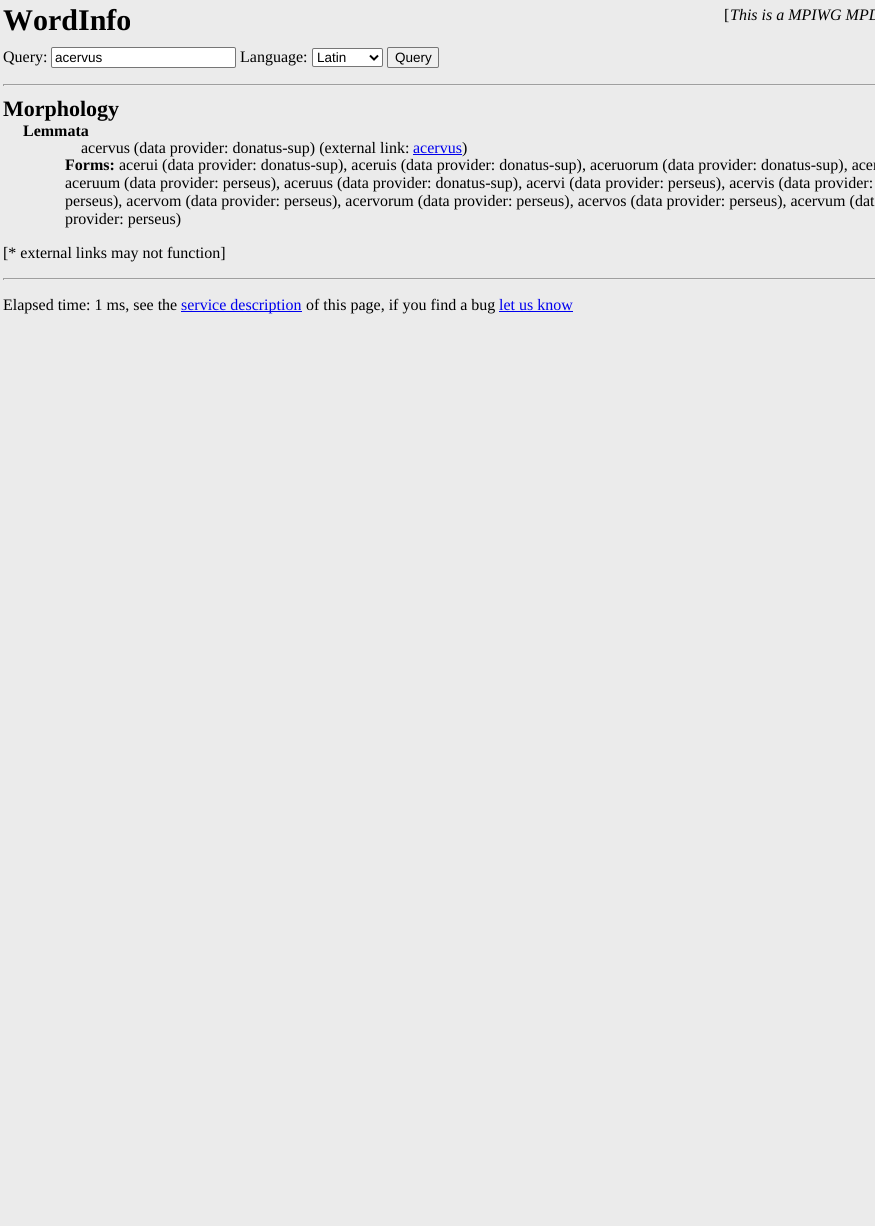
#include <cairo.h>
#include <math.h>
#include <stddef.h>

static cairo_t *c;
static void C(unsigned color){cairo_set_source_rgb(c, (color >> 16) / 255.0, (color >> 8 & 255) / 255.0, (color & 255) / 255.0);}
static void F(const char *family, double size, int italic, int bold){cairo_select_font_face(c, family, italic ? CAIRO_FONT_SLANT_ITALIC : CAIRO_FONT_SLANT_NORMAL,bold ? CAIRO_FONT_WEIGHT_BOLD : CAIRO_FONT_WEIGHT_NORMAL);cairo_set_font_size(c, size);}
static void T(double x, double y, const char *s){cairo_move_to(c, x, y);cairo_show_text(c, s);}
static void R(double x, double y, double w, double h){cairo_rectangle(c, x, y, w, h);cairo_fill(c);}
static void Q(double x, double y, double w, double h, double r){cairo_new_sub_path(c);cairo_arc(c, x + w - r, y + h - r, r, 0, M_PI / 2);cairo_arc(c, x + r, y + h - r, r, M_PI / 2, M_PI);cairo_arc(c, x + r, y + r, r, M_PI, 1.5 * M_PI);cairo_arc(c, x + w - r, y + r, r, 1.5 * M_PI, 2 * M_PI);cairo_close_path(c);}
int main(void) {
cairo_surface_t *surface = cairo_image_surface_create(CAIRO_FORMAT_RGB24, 875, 1226);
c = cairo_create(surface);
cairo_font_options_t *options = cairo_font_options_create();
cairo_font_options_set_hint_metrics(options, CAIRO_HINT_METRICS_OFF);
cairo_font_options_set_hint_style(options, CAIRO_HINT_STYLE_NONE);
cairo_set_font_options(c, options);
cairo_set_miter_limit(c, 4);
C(0xebebeb);
cairo_paint(c);
F("Liberation Serif",30,0,1);
C(0x000000);
T(3,30,"WordInfo");
F("Liberation Serif",16,0,0);
T(724,20,"[");
F("Liberation Serif",16,1,0);
T(730,20,"This is a MPIWG MPD");
F("Liberation Serif",16,0,0);
T(3,62,"Query:");
C(0xffffff);
Q(51.5,47.5,184,20,1.5);
cairo_fill_preserve(c);
C(0x767676);
cairo_set_line_width(c,1);
cairo_stroke(c);
F("Liberation Sans",13.5,0,0);
C(0x000000);
T(55,62,"acervus");
F("Liberation Serif",16,0,0);
T(240,62,"Language:");
C(0xffffff);
Q(312.5,48.5,70,18,1.5);
cairo_fill_preserve(c);
C(0x767676);
cairo_stroke(c);
cairo_new_path(c);
cairo_move_to(c,370,55.5);
cairo_line_to(c,374,59.5);
cairo_line_to(c,378,55.5);
C(0x000000);
cairo_set_line_width(c,2);
cairo_stroke(c);
F("Liberation Sans",13.5,0,0);
T(317,62,"Latin");
C(0xefefef);
Q(387.5,47.5,51,20,1.5);
cairo_fill_preserve(c);
C(0x767676);
cairo_set_line_width(c,1);
cairo_stroke(c);
C(0x000000);
T(395,62,"Query");
C(0x9f9f9f);
R(3,84,872,1);
C(0xeeeeee);
R(3,85,872,1);
C(0x9f9f9f);
R(3,84,1,2);
F("Liberation Serif",22,0,1);
C(0x000000);
T(3,116,"Morphology");
F("Liberation Serif",16,0,1);
T(23,136,"Lemmata");
F("Liberation Serif",16,0,0);
T(81,153,"acervus (data provider: donatus-sup) (external link:");
C(0x0000ee);
T(413,153,"acervus");
R(413,154,49,1);
C(0x000000);
T(462,153,")");
F("Liberation Serif",16,0,1);
T(65,170,"Forms:");
F("Liberation Serif",16,0,0);
T(119,170,"acerui (data provider: donatus-sup), aceruis (data provider: donatus-sup), aceruorum (data provider: donatus-sup), acer");
T(65,188,"aceruum (data provider: perseus), aceruus (data provider: donatus-sup), acervi (data provider: perseus), acervis (data provider:");
T(65,206,"perseus), acervom (data provider: perseus), acervorum (data provider: perseus), acervos (data provider: perseus), acervum (dat");
T(65,224,"provider: perseus)");
T(3,258,"[* external links may not function]");
C(0x9f9f9f);
R(3,278,872,1);
C(0xeeeeee);
R(3,279,872,1);
C(0x9f9f9f);
R(3,278,1,2);
C(0x000000);
T(3,310,"Elapsed time: 1 ms, see the");
C(0x0000ee);
R(181,311,121,1);
T(181,310,"service description");
C(0x000000);
T(306,310,"of this page, if you find a bug");
C(0x0000ee);
T(499,310,"let us know");
R(499,311,74,1);
cairo_surface_write_to_png(surface, "o.png");
cairo_font_options_destroy(options);
cairo_destroy(c);
cairo_surface_destroy(surface);
return 0;
}
